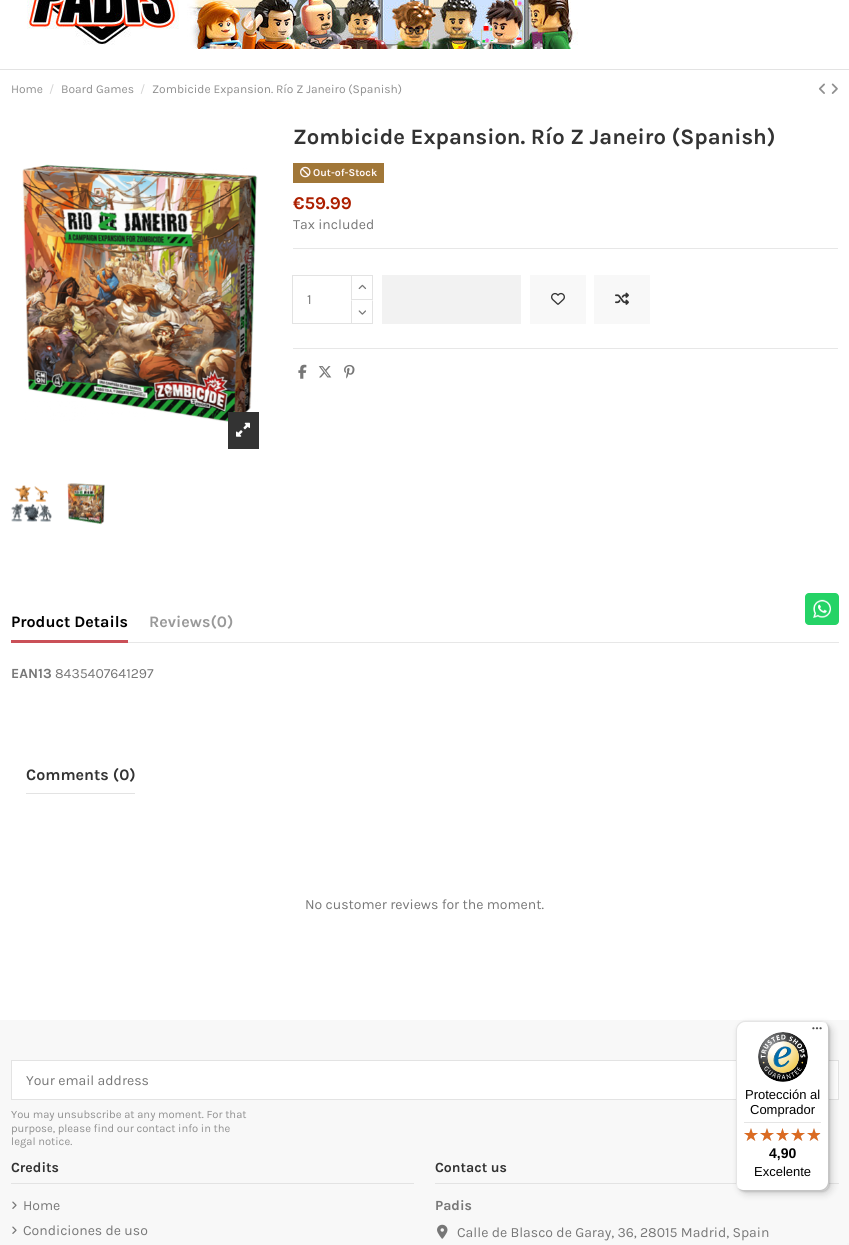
#include <cairo.h>
#include <math.h>
#include <stddef.h>

static cairo_t *c;
static void C(unsigned color){cairo_set_source_rgb(c, (color >> 16) / 255.0, (color >> 8 & 255) / 255.0, (color & 255) / 255.0);}
static void F(const char *family, double size, int italic, int bold){cairo_select_font_face(c, family, italic ? CAIRO_FONT_SLANT_ITALIC : CAIRO_FONT_SLANT_NORMAL,bold ? CAIRO_FONT_WEIGHT_BOLD : CAIRO_FONT_WEIGHT_NORMAL);cairo_set_font_size(c, size);}
static void T(double x, double y, const char *s){cairo_move_to(c, x, y);cairo_show_text(c, s);}
static void R(double x, double y, double w, double h){cairo_rectangle(c, x, y, w, h);cairo_fill(c);}
static void Q(double x, double y, double w, double h, double r){cairo_new_sub_path(c);cairo_arc(c, x + w - r, y + h - r, r, 0, M_PI / 2);cairo_arc(c, x + r, y + h - r, r, M_PI / 2, M_PI);cairo_arc(c, x + r, y + r, r, M_PI, 1.5 * M_PI);cairo_arc(c, x + w - r, y + r, r, 1.5 * M_PI, 2 * M_PI);cairo_close_path(c);}
static void S(double x, double y, double w, double h, double r, double blur, double alpha){cairo_push_group_with_content(c, CAIRO_CONTENT_ALPHA);cairo_set_operator(c, CAIRO_OPERATOR_SOURCE);for (int i = 15; i >= -15 && fmin(w, h) + blur * i / 3 > 0; i -= 2) {double e = blur * i / 6;cairo_set_source_rgba(c, 0, 0, 0, alpha * erfc((i - 1) / 8.5) / 2);Q(x - e, y - e, w + 2 * e, h + 2 * e, fmax(0, fmin(r + e + blur * .6, fmin(w, h) / 2 + e)));cairo_fill(c);}cairo_pattern_t *soft = cairo_pop_group(c);cairo_mask(c, soft);cairo_pattern_destroy(soft);}
static void I(const char *path, double x, double y, double w, double h){cairo_surface_t *image = cairo_image_surface_create_from_png(path);cairo_save(c);cairo_set_source_surface(c, image, x, y);cairo_rectangle(c, x, y, w, h);cairo_fill(c);cairo_restore(c);cairo_surface_destroy(image);}
int main(void) {
cairo_surface_t *surface = cairo_image_surface_create(CAIRO_FORMAT_RGB24, 849, 1245);
c = cairo_create(surface);
cairo_font_options_t *options = cairo_font_options_create();
cairo_font_options_set_hint_metrics(options, CAIRO_HINT_METRICS_OFF);
cairo_font_options_set_hint_style(options, CAIRO_HINT_STYLE_NONE);
cairo_set_font_options(c, options);
cairo_set_miter_limit(c, 4);
C(0xffffff);
cairo_paint(c);
C(0xe3e3e3);
R(0,69,849,1);
I("1.png",27,0,551,49);
F("Karla",12,0,0);
C(0x8f8f8f);
T(11,93,"Home");
C(0xd2d2d2);
T(49,93,"/");
C(0x8f8f8f);
T(61,93,"Board Games");
C(0xd2d2d2);
T(140,93,"/");
C(0x8f8f8f);
T(152,93,"Zombicide Expansion. Río Z Janeiro (Spanish)");
I("2.png",818,83,7,11);
I("3.png",831,83,7,11);
I("4.png",22,164,236,258);
C(0x333333);
R(228,412,31,37);
I("5.png",236,422,14,15);
I("6.png",11,485,41,37);
I("7.png",67,483,38,42);
C(0xe7e7e7);
R(293,248,545,1);
F("Karla",22,0,1);
C(0x333333);
T(293,144,"Zombicide Expansion. Río Z Janeiro (Spanish)");
C(0xa17738);
R(293,163,91,20);
I("8.png",300,166,11,12);
F("Karla",10.5,0,1);
C(0xfff7f7);
T(313,176,"Out-of-Stock");
F("Karla",18,0,1);
C(0xad1f00);
T(293,209,"€59.99");
F("Karla",14,0,0);
C(0x777777);
T(293,229,"Tax included");
cairo_rectangle(c,292.5,275.5,60,48);
C(0xe3e3e3);
cairo_set_line_width(c,1);
cairo_stroke(c);
C(0x777777);
T(307,304,"1");
C(0xffffff);
R(352,276,1,23);
cairo_rectangle(c,351.5,275.5,21,24);
C(0xe3e3e3);
cairo_stroke(c);
I("9.png",358,284,9,6);
C(0xffffff);
R(352,300,1,23);
C(0xe3e3e3);
cairo_new_path(c);
cairo_move_to(c,373,300);
cairo_line_to(c,373,324);
cairo_line_to(c,372,323);
cairo_line_to(c,372,301);
cairo_close_path(c);
cairo_fill(c);
R(351,323,22,1);
cairo_new_path(c);
cairo_move_to(c,351,324);
cairo_line_to(c,351,300);
cairo_line_to(c,352,301);
cairo_line_to(c,352,323);
cairo_close_path(c);
cairo_fill(c);
I("10.png",358,310,8,5);
C(0xf2f2f2);
R(382,275,139,49);
C(0xf8f8f8);
R(530,275,56,49);
I("11.png",551,292,14,13);
R(594,275,56,49);
I("12.png",615,292,14,13);
C(0xe7e7e7);
R(293,348,545,1);
I("13.png",298,364,9,15);
I("14.png",318,366,14,12);
I("15.png",344,364,11,15);
R(128,642,711,1);
C(0xca5058);
R(11,640,117,3);
F("Karla",16,0,1);
C(0x000000);
T(11,627,"Product Details");
C(0x999999);
T(149,627,"Reviews(0)");
F("Karla",14,0,1);
C(0x777777);
T(11,678,"EAN13");
F("Karla",14,0,0);
T(55,678,"8435407641297");
C(0xe3e3e3);
R(26,793,109,1);
F("Karla",16,0,1);
C(0x333333);
T(26,780,"Comments (0)");
F("Karla",14,0,0);
C(0x777777);
T(305,909,"No customer reviews for the moment.");
C(0xf8f8f8);
R(0,1020,849,225);
C(0xffffff);
cairo_rectangle(c,11.5,1060.5,827,39);
cairo_fill_preserve(c);
C(0xe3e3e3);
cairo_stroke(c);
C(0x777777);
T(26,1085,"Your email address");
F("Karla",11.2,0,0);
C(0x8f8f8f);
T(11,1118,"You may unsubscribe at any moment. For that");
T(11,1132,"purpose, please find our contact info in the");
T(11,1145,"legal notice.");
C(0xe3e3e3);
R(11,1183,403,1);
F("Karla",14,0,1);
C(0x333333);
T(11,1172,"Credits");
I("16.png",12,1201,5,8);
F("Karla",14,0,0);
C(0x777777);
T(23,1210,"Home");
I("16.png",12,1226,5,8);
T(23,1235,"Condiciones de uso");
C(0xe3e3e3);
R(435,1183,404,1);
F("Karla",14,0,1);
C(0x333333);
T(435,1172,"Contact us");
C(0x777777);
T(435,1210,"Padis");
I("17.png",437,1224,11,15);
F("Karla",14,0,0);
T(457,1237,"Calle de Blasco de Garay, 36, 28015 Madrid, Spain");
C(0x25d366);
Q(805,593,34,32,4);
cairo_fill(c);
I("18.png",813,599,18,19);
C(0x000000);
S(739,1024,93,170,8,4,.15);
S(737,1022,93,170,8,1,.15);
C(0xffffff);
Q(736,1021,93,170,8);
cairo_fill(c);
C(0xe5e5e5);
cairo_new_path(c);
cairo_move_to(c,745,1022);
cairo_line_to(c,822,1022);
cairo_curve_to(c,824,1022,826,1023,828,1025);
cairo_curve_to(c,826,1023,824,1021,821,1021);
cairo_line_to(c,744,1021);
cairo_curve_to(c,740,1021,736,1025,736,1029);
cairo_line_to(c,736,1183);
cairo_curve_to(c,736,1186,738,1188,740,1190);
cairo_curve_to(c,738,1188,737,1186,737,1184);
cairo_line_to(c,737,1030);
cairo_curve_to(c,737,1026,741,1022,745,1022);
cairo_close_path(c);
cairo_fill(c);
cairo_set_source_rgba(c,0,0,0,0.2);
cairo_new_path(c);
cairo_move_to(c,737,1187);
cairo_curve_to(c,739,1189,741,1191,744,1191);
cairo_line_to(c,821,1191);
cairo_curve_to(c,825,1191,829,1187,829,1183);
cairo_line_to(c,829,1029);
cairo_curve_to(c,829,1026,827,1024,825,1022);
cairo_curve_to(c,827,1024,828,1026,828,1028);
cairo_line_to(c,828,1182);
cairo_curve_to(c,828,1186,824,1190,820,1190);
cairo_line_to(c,743,1190);
cairo_curve_to(c,741,1190,739,1189,737,1187);
cairo_close_path(c);
cairo_fill(c);
cairo_set_source_rgba(c,0.196,0.196,0.196,0.2);
cairo_new_path(c);
cairo_move_to(c,738,1188);
cairo_curve_to(c,739,1190,742,1191,744,1191);
cairo_line_to(c,821,1191);
cairo_curve_to(c,825,1191,829,1187,829,1183);
cairo_line_to(c,829,1029);
cairo_curve_to(c,829,1027,828,1024,826,1023);
cairo_curve_to(c,827,1024,828,1026,828,1028);
cairo_line_to(c,828,1182);
cairo_curve_to(c,828,1187,825,1190,820,1190);
cairo_line_to(c,743,1190);
cairo_curve_to(c,741,1190,739,1189,738,1188);
cairo_close_path(c);
cairo_fill(c);
cairo_set_source_rgba(c,1,1,1,0.3);
cairo_new_path(c);
cairo_move_to(c,736,1182);
cairo_line_to(c,736,1183);
cairo_curve_to(c,736,1187,740,1191,744,1191);
cairo_line_to(c,821,1191);
cairo_curve_to(c,825,1191,829,1187,829,1183);
cairo_line_to(c,829,1029);
cairo_curve_to(c,829,1027,828,1024,826,1023);
cairo_curve_to(c,827,1024,828,1026,828,1028);
cairo_line_to(c,828,1182);
cairo_curve_to(c,828,1187,825,1190,820,1190);
cairo_line_to(c,744,1190);
cairo_curve_to(c,739,1190,736,1187,736,1182);
cairo_close_path(c);
cairo_fill(c);
I("19.png",812,1027,10,3);
I("20.png",758,1032,50,50);
F("Liberation Sans",13,0,0);
C(0x000000);
T(745,1099,"Protección al");
T(750,1114,"Comprador");
C(0xe5e5e5);
R(744,1122,77,1);
I("21.png",744,1128,14,13);
I("21.png",760,1128,14,13);
I("22.png",776,1128,13,13);
I("21.png",791,1128,14,13);
I("21.png",807,1128,14,13);
I("23.png",744,1128,14,13);
I("23.png",760,1128,14,13);
I("24.png",776,1128,13,13);
I("23.png",791,1128,14,13);
I("25.png",807,1128,13,13);
F("Liberation Sans",14,0,1);
C(0x000000);
T(769,1158,"4,90");
F("Liberation Sans",13,0,0);
T(754,1176,"Excelente");
C(0xf5f5f5);
R(847,1243,2,2);
cairo_surface_write_to_png(surface, "o.png");
cairo_font_options_destroy(options);
cairo_destroy(c);
cairo_surface_destroy(surface);
return 0;
}
